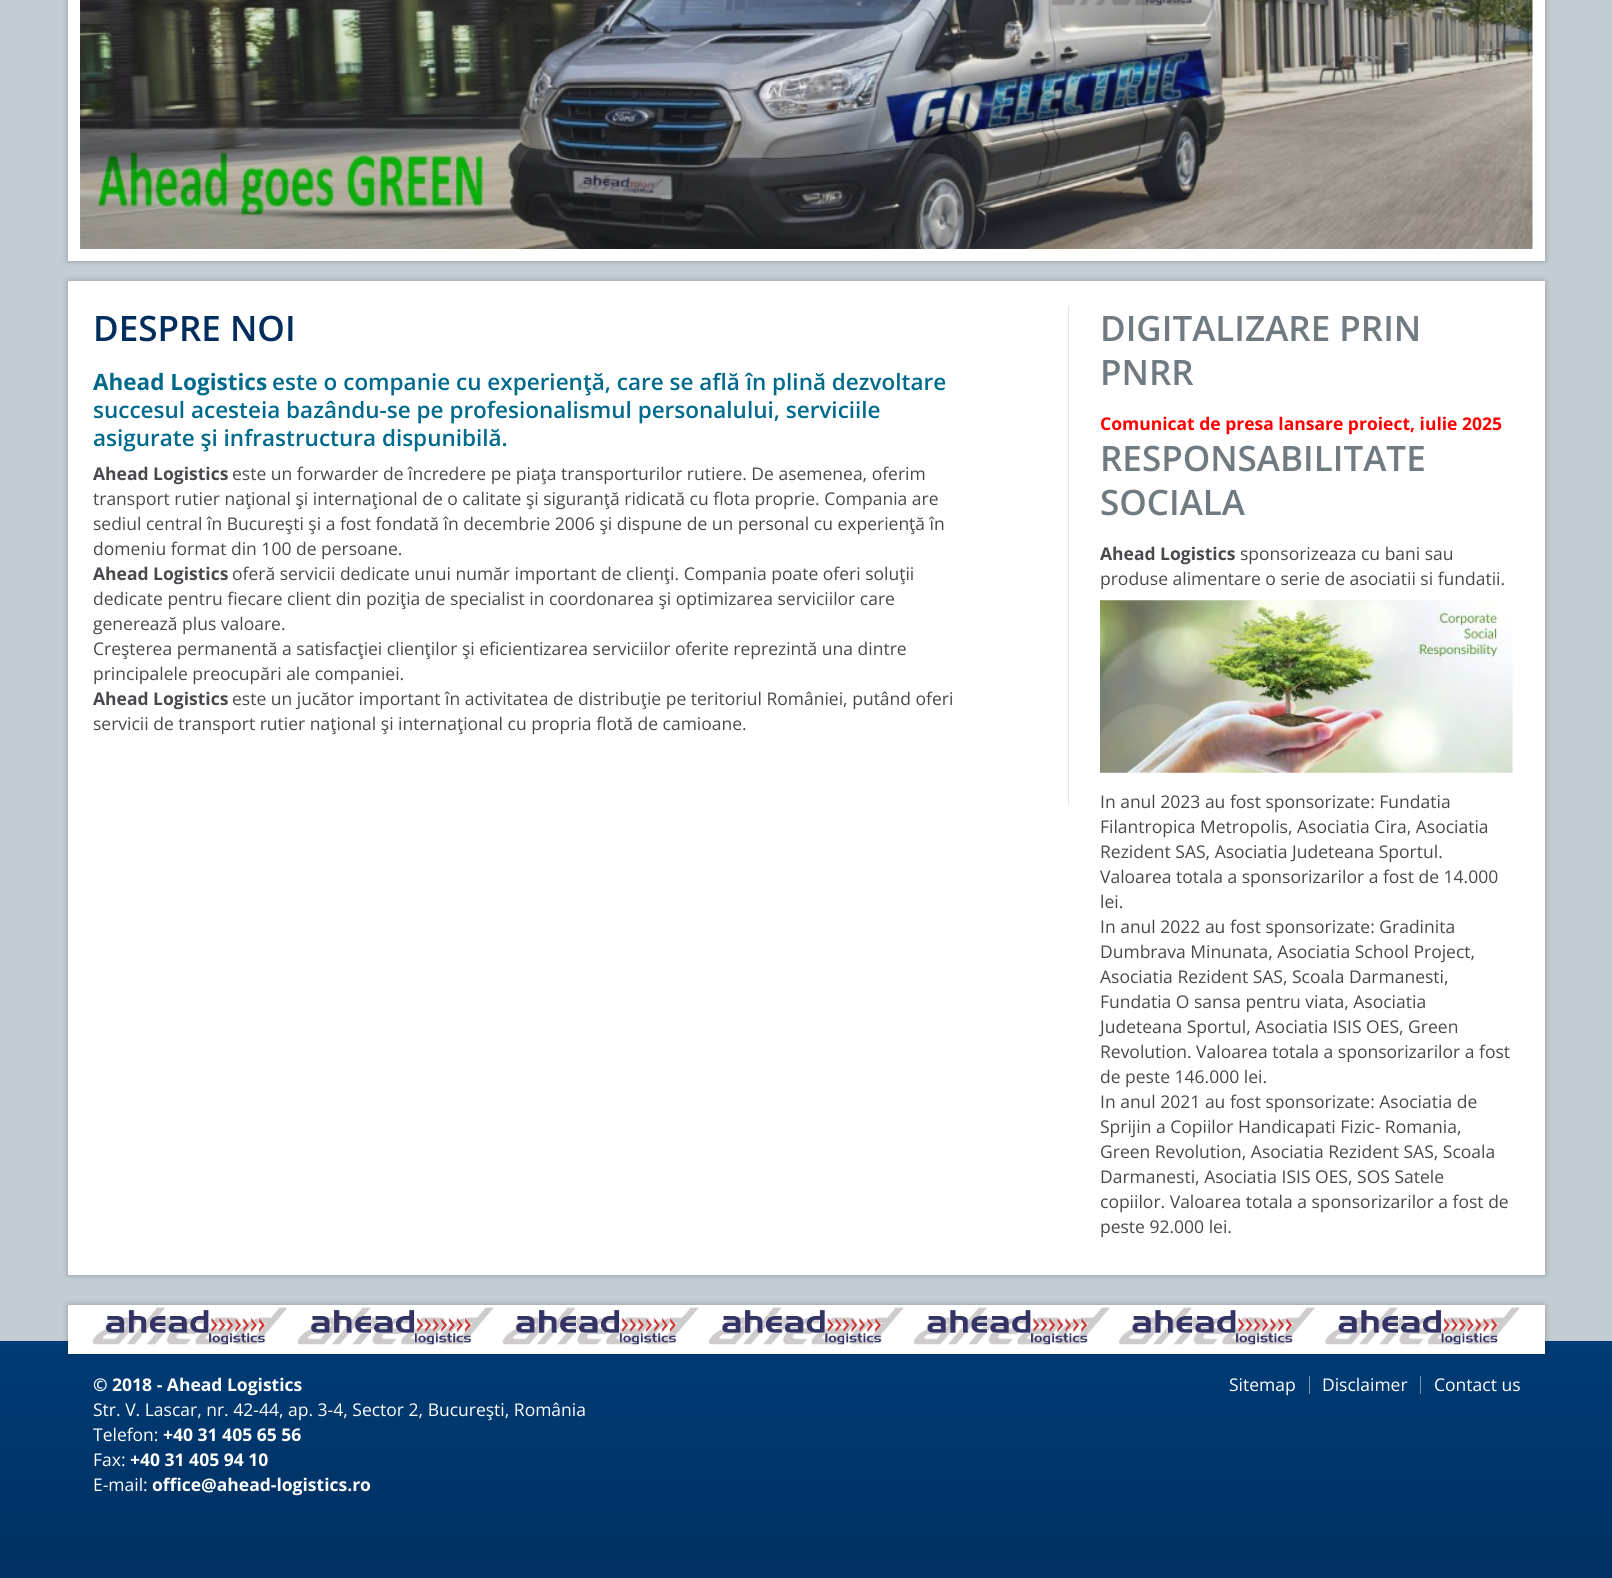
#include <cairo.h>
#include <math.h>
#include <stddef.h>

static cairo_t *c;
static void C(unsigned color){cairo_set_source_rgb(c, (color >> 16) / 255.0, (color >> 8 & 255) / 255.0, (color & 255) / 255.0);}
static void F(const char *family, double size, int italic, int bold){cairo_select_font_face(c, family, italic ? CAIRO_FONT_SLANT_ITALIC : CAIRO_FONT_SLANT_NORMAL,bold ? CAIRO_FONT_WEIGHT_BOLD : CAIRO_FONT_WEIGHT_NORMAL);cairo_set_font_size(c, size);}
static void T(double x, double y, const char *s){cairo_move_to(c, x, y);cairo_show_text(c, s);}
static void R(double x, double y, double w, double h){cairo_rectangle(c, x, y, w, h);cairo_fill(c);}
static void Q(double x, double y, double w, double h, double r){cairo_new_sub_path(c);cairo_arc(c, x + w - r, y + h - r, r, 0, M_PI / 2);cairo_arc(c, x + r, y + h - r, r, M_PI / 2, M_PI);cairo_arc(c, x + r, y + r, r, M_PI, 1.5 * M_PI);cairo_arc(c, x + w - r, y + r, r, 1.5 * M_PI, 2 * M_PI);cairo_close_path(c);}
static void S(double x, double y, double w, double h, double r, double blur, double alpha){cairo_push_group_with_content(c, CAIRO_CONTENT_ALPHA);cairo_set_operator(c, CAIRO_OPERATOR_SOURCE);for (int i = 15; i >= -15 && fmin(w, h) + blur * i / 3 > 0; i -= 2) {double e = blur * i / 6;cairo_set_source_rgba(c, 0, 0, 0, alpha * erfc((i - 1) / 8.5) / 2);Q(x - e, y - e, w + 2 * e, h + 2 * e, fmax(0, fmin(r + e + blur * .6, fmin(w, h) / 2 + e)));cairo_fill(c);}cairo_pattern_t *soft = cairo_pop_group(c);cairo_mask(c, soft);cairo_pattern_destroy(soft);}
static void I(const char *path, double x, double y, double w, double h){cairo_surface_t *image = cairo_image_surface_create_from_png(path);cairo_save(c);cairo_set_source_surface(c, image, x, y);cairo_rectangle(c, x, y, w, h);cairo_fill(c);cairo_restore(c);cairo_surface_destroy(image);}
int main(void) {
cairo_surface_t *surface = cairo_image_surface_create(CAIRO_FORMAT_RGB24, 1612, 1578);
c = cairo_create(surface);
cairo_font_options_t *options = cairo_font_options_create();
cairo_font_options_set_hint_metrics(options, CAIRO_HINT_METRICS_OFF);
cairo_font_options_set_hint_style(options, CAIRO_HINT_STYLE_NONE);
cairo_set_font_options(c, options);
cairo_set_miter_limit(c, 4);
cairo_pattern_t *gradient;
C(0xc2ccd3);
cairo_paint(c);
cairo_save(c);
cairo_set_fill_rule(c,CAIRO_FILL_RULE_EVEN_ODD);
cairo_new_path(c);
cairo_move_to(c,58,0);
cairo_line_to(c,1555,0);
cairo_line_to(c,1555,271);
cairo_line_to(c,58,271);
cairo_close_path(c);
cairo_move_to(c,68,-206);
cairo_line_to(c,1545,-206);
cairo_line_to(c,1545,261);
cairo_line_to(c,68,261);
cairo_close_path(c);
cairo_clip(c);
C(0x000000);
S(68,-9,1477,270,0,3,.25);
cairo_restore(c);
cairo_rectangle(c,74.5,-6.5,1464,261);
C(0xffffff);
cairo_set_line_width(c,13);
cairo_stroke(c);
I("1.png",80,0,1453,249);
C(0x000000);
S(68,281,1477,994,0,3,.25);
C(0xffffff);
R(68,281,1477,994);
C(0xe2e6ea);
R(1068,306,1,499);
F("Open Sans SemiBold",35,0,0);
C(0x002d5d);
T(93,341,"DESPRE NOI");
F("Open Sans",22.5,0,1);
C(0x006a8c);
T(93,390,"Ahead Logistics");
F("Open Sans SemiBold",22.5,0,0);
T(272,390,"este o companie cu experienţă, care se află în plină dezvoltare");
T(93,418,"succesul acesteia bazându-se pe profesionalismul personalului, serviciile");
T(93,446,"asigurate şi infrastructura dispunibilă.");
F("Open Sans",17.5,0,1);
C(0x47494c);
T(93,480,"Ahead Logistics");
F("Open Sans",17.5,0,0);
T(232,480,"este un forwarder de încredere pe piaţa transporturilor rutiere. De asemenea, oferim");
T(93,505,"transport rutier naţional şi internaţional de o calitate şi siguranţă ridicată cu flota proprie. Compania are");
T(93,530,"sediul central în Bucureşti şi a fost fondată în decembrie 2006 şi dispune de un personal cu experienţă în");
T(93,555,"domeniu format din 100 de persoane.");
F("Open Sans",17.5,0,1);
T(93,580,"Ahead Logistics");
F("Open Sans",17.5,0,0);
T(232,580,"oferă servicii dedicate unui număr important de clienţi. Compania poate oferi soluţii");
T(93,605,"dedicate pentru fiecare client din poziţia de specialist in coordonarea şi optimizarea serviciilor care");
T(93,630,"generează plus valoare.");
T(93,655,"Creşterea permanentă a satisfacţiei clienţilor şi eficientizarea serviciilor oferite reprezintă una dintre");
T(93,680,"principalele preocupări ale companiei.");
F("Open Sans",17.5,0,1);
T(93,705,"Ahead Logistics");
F("Open Sans",17.5,0,0);
T(232,705,"este un jucător important în activitatea de distribuţie pe teritoriul României, putând oferi");
T(93,730,"servicii de transport rutier naţional şi internaţional cu propria flotă de camioane.");
F("Open Sans SemiBold",35,0,0);
C(0x707a81);
T(1100,341,"DIGITALIZARE PRIN");
T(1100,385,"PNRR");
F("Open Sans",17.5,0,1);
C(0xff0000);
T(1100,430,"Comunicat de presa lansare proiect, iulie 2025");
F("Open Sans SemiBold",35,0,0);
C(0x707a81);
T(1100,471,"RESPONSABILITATE");
T(1100,515,"SOCIALA");
F("Open Sans",17.5,0,1);
C(0x47494c);
T(1100,560,"Ahead Logistics");
F("Open Sans",17.5,0,0);
T(1240,560,"sponsorizeaza cu bani sau");
T(1100,585,"produse alimentare o serie de asociatii si fundatii.");
I("2.png",1100,600,413,173);
T(1100,808,"In anul 2023 au fost sponsorizate: Fundatia");
T(1100,833,"Filantropica Metropolis, Asociatia Cira, Asociatia");
T(1100,858,"Rezident SAS, Asociatia Judeteana Sportul.");
T(1100,883,"Valoarea totala a sponsorizarilor a fost de 14.000");
T(1100,908,"lei.");
T(1100,933,"In anul 2022 au fost sponsorizate: Gradinita");
T(1100,958,"Dumbrava Minunata, Asociatia School Project,");
T(1100,983,"Asociatia Rezident SAS, Scoala Darmanesti,");
T(1100,1008,"Fundatia O sansa pentru viata, Asociatia");
T(1100,1033,"Judeteana Sportul, Asociatia ISIS OES, Green");
T(1100,1058,"Revolution. Valoarea totala a sponsorizarilor a fost");
T(1100,1083,"de peste 146.000 lei.");
T(1100,1108,"In anul 2021 au fost sponsorizate: Asociatia de");
T(1100,1133,"Sprijin a Copiilor Handicapati Fizic- Romania,");
T(1100,1158,"Green Revolution, Asociatia Rezident SAS, Scoala");
T(1100,1183,"Darmanesti, Asociatia ISIS OES, SOS Satele");
T(1100,1208,"copiilor. Valoarea totala a sponsorizarilor a fost de");
T(1100,1233,"peste 92.000 lei.");
gradient = cairo_pattern_create_linear(806,1341,806,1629);
cairo_pattern_add_color_stop_rgba(gradient,0,0,0.235,0.459,1);
cairo_pattern_add_color_stop_rgba(gradient,1,0,0.176,0.365,1);
cairo_set_source(c,gradient);
cairo_pattern_destroy(gradient);
R(0,1341,1612,237);
C(0x000000);
S(68,1305,1477,49,0,3,.25);
C(0xffffff);
R(68,1305,1477,49);
I("3.png",92,1307,196,38);
I("4.png",297,1307,197,38);
I("4.png",502,1307,197,38);
I("5.png",708,1307,196,38);
I("6.png",913,1307,197,38);
I("6.png",1118,1307,197,38);
I("7.png",1325,1307,195,38);
F("Open Sans",17.5,0,1);
T(93,1391,"© 2018 - Ahead Logistics");
F("Open Sans",17.5,0,0);
T(93,1416,"Str. V. Lascar, nr. 42-44, ap. 3-4, Sector 2, Bucureşti, România");
T(93,1441,"Telefon:");
F("Open Sans",17.5,0,1);
T(163,1441,"+40 31 405 65 56");
F("Open Sans",17.5,0,0);
T(93,1466,"Fax:");
F("Open Sans",17.5,0,1);
T(130,1466,"+40 31 405 94 10");
F("Open Sans",17.5,0,0);
T(93,1491,"E-mail:");
F("Open Sans",17.5,0,1);
T(152,1491,"office@ahead-logistics.ro");
C(0x8096ae);
R(1309,1376,1,18);
F("Open Sans",17.5,0,0);
C(0xffffff);
T(1229,1391,"Sitemap");
C(0x8096ae);
R(1420,1376,1,18);
C(0xffffff);
T(1322,1391,"Disclaimer");
T(1434,1391,"Contact us");
cairo_surface_write_to_png(surface, "o.png");
cairo_font_options_destroy(options);
cairo_destroy(c);
cairo_surface_destroy(surface);
return 0;
}
